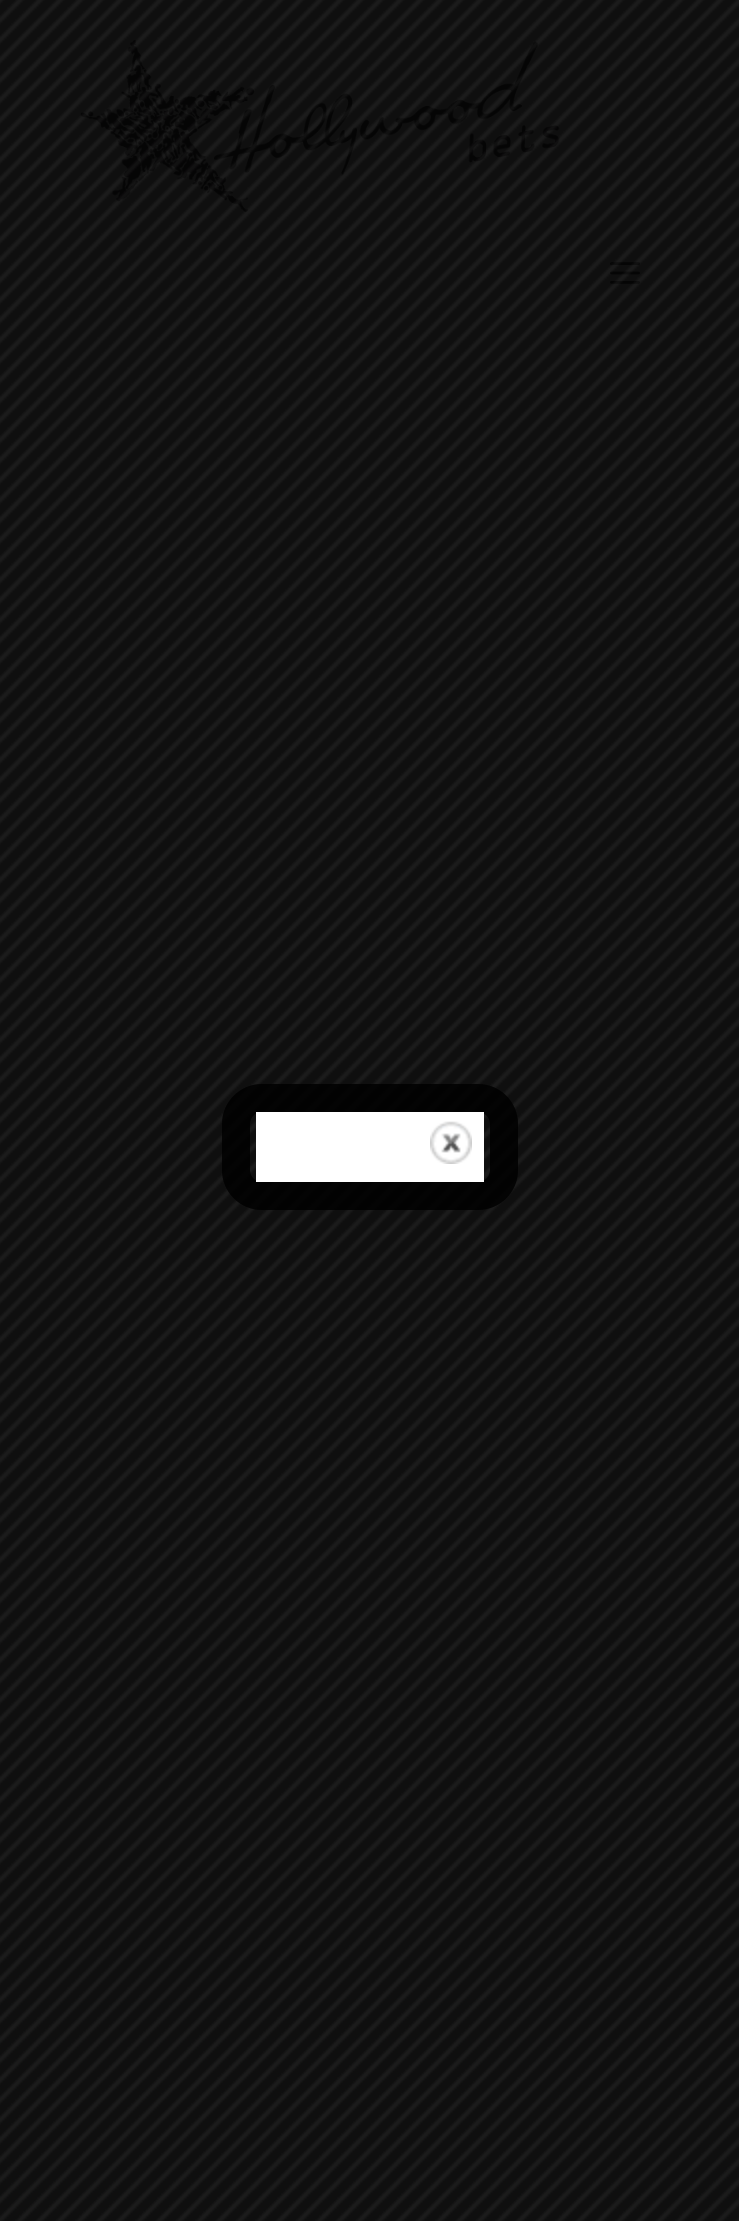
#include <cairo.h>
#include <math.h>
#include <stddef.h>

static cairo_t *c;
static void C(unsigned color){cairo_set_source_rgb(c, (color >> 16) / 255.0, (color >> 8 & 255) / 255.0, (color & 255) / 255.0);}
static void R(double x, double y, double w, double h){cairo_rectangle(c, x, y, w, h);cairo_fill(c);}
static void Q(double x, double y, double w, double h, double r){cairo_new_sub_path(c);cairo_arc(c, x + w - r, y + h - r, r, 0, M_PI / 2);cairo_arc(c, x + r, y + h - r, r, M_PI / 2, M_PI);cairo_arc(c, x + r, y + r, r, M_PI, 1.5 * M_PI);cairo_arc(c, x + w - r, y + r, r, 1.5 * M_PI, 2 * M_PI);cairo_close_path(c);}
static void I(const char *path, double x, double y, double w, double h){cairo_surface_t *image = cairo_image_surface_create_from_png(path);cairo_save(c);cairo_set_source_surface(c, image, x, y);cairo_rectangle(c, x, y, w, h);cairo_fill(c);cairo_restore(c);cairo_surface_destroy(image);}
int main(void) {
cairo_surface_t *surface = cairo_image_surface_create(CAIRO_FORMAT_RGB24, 739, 2221);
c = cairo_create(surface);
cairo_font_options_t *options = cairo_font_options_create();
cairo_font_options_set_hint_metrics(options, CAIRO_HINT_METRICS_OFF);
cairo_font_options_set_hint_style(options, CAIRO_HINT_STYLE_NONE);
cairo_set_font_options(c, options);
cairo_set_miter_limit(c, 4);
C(0xffffff);
cairo_paint(c);
I("3.png",80,40,480,172);
I("4.png",610,262,30,22);
I("1.png",0,0,739,2221);
I("2.png",0,0,739,2221);
Q(236,1098,268,98,26);
cairo_set_source_rgba(c,0,0,0,0.6);
cairo_set_line_width(c,28);
cairo_stroke(c);
Q(236,1098,268,98,26);
cairo_stroke(c);
C(0xffffff);
R(256,1112,228,70);
I("5.png",430,1121,42,43);
cairo_surface_write_to_png(surface, "o.png");
cairo_font_options_destroy(options);
cairo_destroy(c);
cairo_surface_destroy(surface);
return 0;
}
